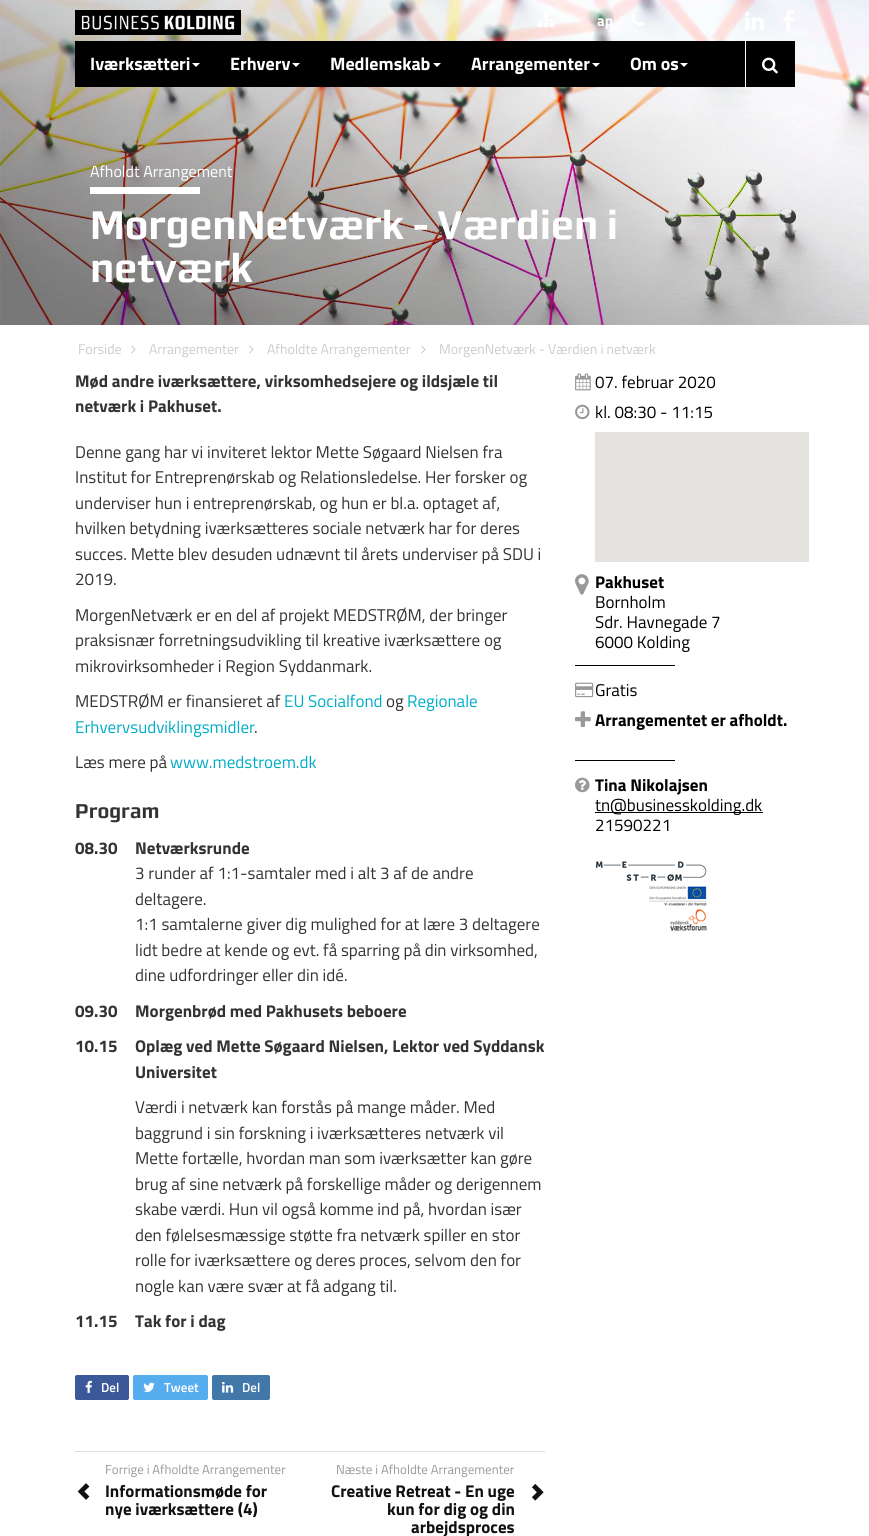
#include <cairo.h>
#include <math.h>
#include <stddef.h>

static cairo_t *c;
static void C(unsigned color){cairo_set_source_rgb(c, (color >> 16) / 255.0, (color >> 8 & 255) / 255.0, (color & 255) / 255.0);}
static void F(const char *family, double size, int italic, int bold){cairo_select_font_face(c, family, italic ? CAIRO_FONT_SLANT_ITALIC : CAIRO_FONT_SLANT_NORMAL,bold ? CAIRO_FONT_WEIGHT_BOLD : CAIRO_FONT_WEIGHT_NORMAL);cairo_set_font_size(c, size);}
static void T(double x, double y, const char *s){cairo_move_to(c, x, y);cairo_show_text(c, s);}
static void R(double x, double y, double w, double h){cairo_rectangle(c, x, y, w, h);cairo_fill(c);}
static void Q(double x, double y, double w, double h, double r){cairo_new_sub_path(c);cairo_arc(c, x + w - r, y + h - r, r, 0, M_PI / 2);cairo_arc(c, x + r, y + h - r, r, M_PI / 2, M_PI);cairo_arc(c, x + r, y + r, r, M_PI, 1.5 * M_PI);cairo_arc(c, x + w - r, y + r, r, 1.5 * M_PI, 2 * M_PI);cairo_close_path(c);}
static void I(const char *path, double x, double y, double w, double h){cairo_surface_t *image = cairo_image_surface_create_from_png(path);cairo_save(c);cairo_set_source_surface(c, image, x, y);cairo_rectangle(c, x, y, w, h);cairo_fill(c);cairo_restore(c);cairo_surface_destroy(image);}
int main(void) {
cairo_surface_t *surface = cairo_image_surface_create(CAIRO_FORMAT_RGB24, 869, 1536);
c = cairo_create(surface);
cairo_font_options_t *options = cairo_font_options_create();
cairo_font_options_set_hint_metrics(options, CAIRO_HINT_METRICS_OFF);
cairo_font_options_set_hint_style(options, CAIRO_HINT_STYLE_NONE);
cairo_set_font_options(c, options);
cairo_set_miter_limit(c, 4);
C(0xffffff);
cairo_paint(c);
I("8.png",0,0,869,325);
I("7.png",0,0,869,325);
I("1.png",75,10,166,25);
I("2.png",538,13,16,15);
F("Titillium Web",15,0,1);
C(0xffffff);
T(597,26,"ap");
I("3.png",631,13,13,13);
I("4.png",745,12,19,18);
I("5.png",783,10,11,21);
C(0x000000);
R(75,41,720,46);
F("Titillium Web",18,0,1);
C(0xffffff);
T(90,70,"Iværksætteri");
cairo_new_path(c);
cairo_move_to(c,192,63);
cairo_line_to(c,200,63);
cairo_line_to(c,196,67);
cairo_close_path(c);
cairo_fill(c);
T(230,70,"Erhverv");
cairo_new_path(c);
cairo_move_to(c,292,63);
cairo_line_to(c,300,63);
cairo_line_to(c,296,67);
cairo_close_path(c);
cairo_fill(c);
T(330,70,"Medlemskab");
cairo_new_path(c);
cairo_move_to(c,433,63);
cairo_line_to(c,441,63);
cairo_line_to(c,437,67);
cairo_close_path(c);
cairo_fill(c);
T(471,70,"Arrangementer");
cairo_new_path(c);
cairo_move_to(c,592,63);
cairo_line_to(c,600,63);
cairo_line_to(c,596,67);
cairo_close_path(c);
cairo_fill(c);
T(630,70,"Om os");
cairo_new_path(c);
cairo_move_to(c,680,63);
cairo_line_to(c,688,63);
cairo_line_to(c,684,67);
cairo_close_path(c);
cairo_fill(c);
R(745,41,1,46);
I("6.png",762,57,16,17);
F("Titillium Web",16,0,0);
T(90,177,"Afholdt Arrangement");
R(90,187,110,7);
F("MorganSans",40,0,1);
T(90,239,"MorgenNetværk - Værdien i");
T(90,282,"netværk");
F("Titillium Web",14,0,0);
C(0xcccccc);
T(78,354,"Forside");
I("9.png",131,345,5,9);
T(149,354,"Arrangementer");
I("9.png",249,345,5,9);
T(267,354,"Afholdte Arrangementer");
I("9.png",421,345,5,9);
T(439,354,"MorgenNetværk - Værdien i netværk");
F("Titillium Web",17,0,1);
C(0x333333);
T(75,387,"Mød andre iværksættere, virksomhedsejere og ildsjæle til");
T(75,412,"netværk i Pakhuset.");
F("Titillium Web",17,0,0);
T(75,458,"Denne gang har vi inviteret lektor Mette Søgaard Nielsen fra");
T(75,483,"Institut for Entreprenørskab og Relationsledelse. Her forsker og");
T(75,509,"underviser hun i entreprenørskab, og hun er bl.a. optaget af,");
T(75,534,"hvilken betydning iværksætteres sociale netværk har for deres");
T(75,560,"succes. Mette blev desuden udnævnt til årets underviser på SDU i");
T(75,585,"2019.");
T(75,621,"MorgenNetværk er en del af projekt MEDSTRØM, der bringer");
T(75,646,"praksisnær forretningsudvikling til kreative iværksættere og");
T(75,672,"mikrovirksomheder i Region Syddanmark.");
T(75,707,"MEDSTRØM er finansieret af");
C(0x00adc6);
T(284,707,"EU Socialfond");
C(0x333333);
T(386,707,"og");
C(0x00adc6);
T(407,707,"Regionale");
T(75,733,"Erhvervsudviklingsmidler");
C(0x333333);
T(254,733,".");
T(75,768,"Læs mere på");
C(0x00adc6);
T(170,768,"www.medstroem.dk");
F("MorganSans",20,0,1);
C(0x333333);
T(75,818,"Program");
F("Titillium Web",17,0,1);
T(75,854,"08.30");
T(135,854,"Netværksrunde");
F("Titillium Web",17,0,0);
T(135,879,"3 runder af 1:1-samtaler med i alt 3 af de andre");
T(135,905,"deltagere.");
T(135,930,"1:1 samtalerne giver dig mulighed for at lære 3 deltagere");
T(135,956,"lidt bedre at kende og evt. få sparring på din virksomhed,");
T(135,981,"dine udfordringer eller din idé.");
F("Titillium Web",17,0,1);
T(75,1017,"09.30");
T(135,1017,"Morgenbrød med Pakhusets beboere");
T(75,1052,"10.15");
T(135,1052,"Oplæg ved Mette Søgaard Nielsen, Lektor ved Syddansk");
T(135,1078,"Universitet");
F("Titillium Web",17,0,0);
T(135,1113,"Værdi i netværk kan forstås på mange måder. Med");
T(135,1139,"baggrund i sin forskning i iværksætteres netværk vil");
T(135,1164,"Mette fortælle, hvordan man som iværksætter kan gøre");
T(135,1190,"brug af sine netværk på forskellige måder og derigennem");
T(135,1215,"skabe værdi. Hun vil også komme ind på, hvordan især");
T(135,1241,"den følelsesmæssige støtte fra netværk spiller en stor");
T(135,1266,"rolle for iværksættere og deres proces, selvom den for");
T(135,1292,"nogle kan være svær at få adgang til.");
F("Titillium Web",17,0,1);
T(75,1327,"11.15");
T(135,1327,"Tak for i dag");
C(0x3b5998);
Q(75,1375,54,25,2);
cairo_fill(c);
I("10.png",85,1380,7,13);
F("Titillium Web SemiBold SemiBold",13,0,0);
C(0xffffff);
T(101,1392,"Del");
C(0x55acee);
Q(133,1375,75,25,2);
cairo_fill(c);
I("11.png",143,1382,12,10);
C(0xffffff);
T(164,1392,"Tweet");
C(0x4178a9);
Q(212,1375,58,25,2);
cairo_fill(c);
I("12.png",222,1381,12,12);
C(0xffffff);
T(242,1392,"Del");
C(0xdddddd);
R(75,1451,470,1);
F("Titillium Web",13,0,0);
C(0x999999);
T(105,1474,"Forrige i Afholdte Arrangementer");
I("13.png",77,1483,13,17);
F("Titillium Web",17,0,1);
C(0x111111);
T(105,1497,"Informationsmøde for");
T(105,1515,"nye iværksættere (4)");
F("Titillium Web",13,0,0);
C(0x999999);
T(336,1474,"Næste i Afholdte Arrangementer");
F("Titillium Web",17,0,1);
C(0x111111);
T(331,1497,"Creative Retreat - En uge");
T(387,1515,"kun for dig og din");
T(411,1533,"arbejdsproces");
I("14.png",531,1483,13,18);
I("15.png",575,373,16,18);
F("Titillium Web",17,0,0);
C(0x000000);
T(595,388,"07. februar 2020");
I("16.png",575,404,15,16);
T(595,418,"kl. 08:30 - 11:15");
C(0xe5e3df);
R(595,432,214,130);
I("17.png",575,574,14,21);
F("Titillium Web",17,0,1);
C(0x000000);
T(595,588,"Pakhuset");
F("Titillium Web",17,0,0);
T(595,608,"Bornholm");
T(595,628,"Sdr. Havnegade 7");
T(595,648,"6000 Kolding");
R(575,665,100,1);
I("18.png",575,682,19,16);
T(595,696,"Gratis");
I("19.png",575,711,16,16);
F("Titillium Web",17,0,1);
T(595,726,"Arrangementet er afholdt.");
R(575,760,100,1);
I("20.png",575,777,15,16);
T(595,791,"Tina Nikolajsen");
R(595,812,168,1);
F("Titillium Web",17,0,0);
T(595,811,"tn@businesskolding.dk");
T(595,831,"21590221");
I("21.png",595,861,112,70);
cairo_surface_write_to_png(surface, "o.png");
cairo_font_options_destroy(options);
cairo_destroy(c);
cairo_surface_destroy(surface);
return 0;
}
